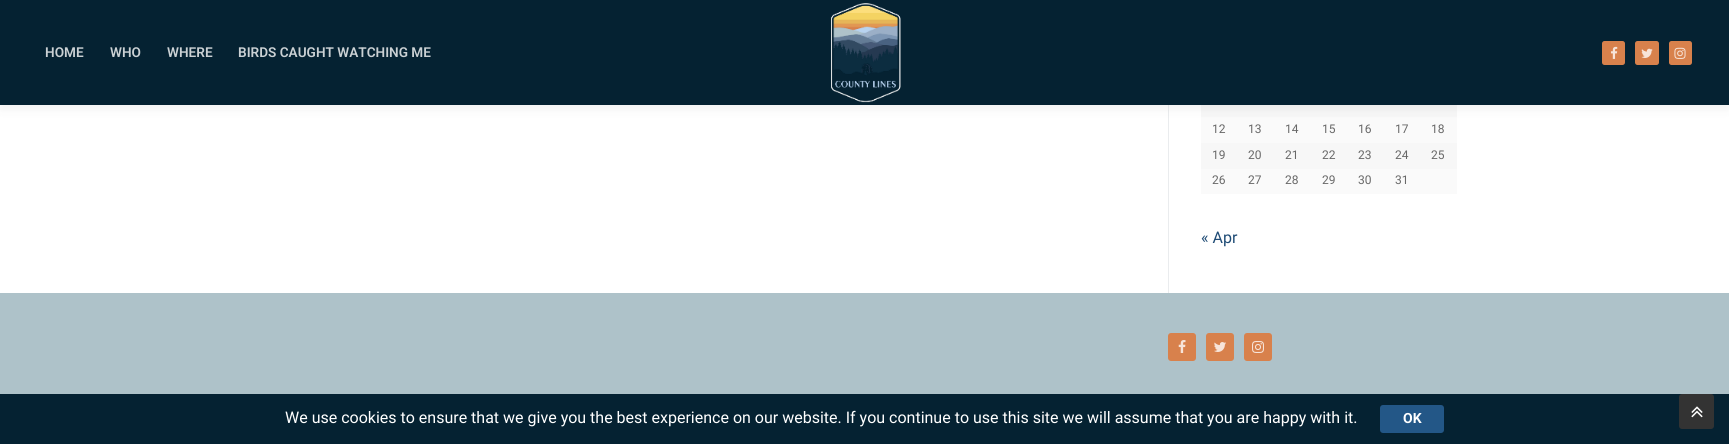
#include <cairo.h>
#include <math.h>
#include <stddef.h>

static cairo_t *c;
static void C(unsigned color){cairo_set_source_rgb(c, (color >> 16) / 255.0, (color >> 8 & 255) / 255.0, (color & 255) / 255.0);}
static void F(const char *family, double size, int italic, int bold){cairo_select_font_face(c, family, italic ? CAIRO_FONT_SLANT_ITALIC : CAIRO_FONT_SLANT_NORMAL,bold ? CAIRO_FONT_WEIGHT_BOLD : CAIRO_FONT_WEIGHT_NORMAL);cairo_set_font_size(c, size);}
static void T(double x, double y, const char *s){cairo_move_to(c, x, y);cairo_show_text(c, s);}
static void R(double x, double y, double w, double h){cairo_rectangle(c, x, y, w, h);cairo_fill(c);}
static void Q(double x, double y, double w, double h, double r){cairo_new_sub_path(c);cairo_arc(c, x + w - r, y + h - r, r, 0, M_PI / 2);cairo_arc(c, x + r, y + h - r, r, M_PI / 2, M_PI);cairo_arc(c, x + r, y + r, r, M_PI, 1.5 * M_PI);cairo_arc(c, x + w - r, y + r, r, 1.5 * M_PI, 2 * M_PI);cairo_close_path(c);}
static void S(double x, double y, double w, double h, double r, double blur, double alpha){cairo_push_group_with_content(c, CAIRO_CONTENT_ALPHA);cairo_set_operator(c, CAIRO_OPERATOR_SOURCE);for (int i = 15; i >= -15 && fmin(w, h) + blur * i / 3 > 0; i -= 2) {double e = blur * i / 6;cairo_set_source_rgba(c, 0, 0, 0, alpha * erfc((i - 1) / 8.5) / 2);Q(x - e, y - e, w + 2 * e, h + 2 * e, fmax(0, fmin(r + e + blur * .6, fmin(w, h) / 2 + e)));cairo_fill(c);}cairo_pattern_t *soft = cairo_pop_group(c);cairo_mask(c, soft);cairo_pattern_destroy(soft);}
static void I(const char *path, double x, double y, double w, double h){cairo_surface_t *image = cairo_image_surface_create_from_png(path);cairo_save(c);cairo_set_source_surface(c, image, x, y);cairo_rectangle(c, x, y, w, h);cairo_fill(c);cairo_restore(c);cairo_surface_destroy(image);}
int main(void) {
cairo_surface_t *surface = cairo_image_surface_create(CAIRO_FORMAT_RGB24, 1729, 444);
c = cairo_create(surface);
cairo_font_options_t *options = cairo_font_options_create();
cairo_font_options_set_hint_metrics(options, CAIRO_HINT_METRICS_OFF);
cairo_font_options_set_hint_style(options, CAIRO_HINT_STYLE_NONE);
cairo_set_font_options(c, options);
cairo_set_miter_limit(c, 4);
C(0xffffff);
cairo_paint(c);
C(0xeaecee);
R(1168,105,1,188);
C(0xf7f7f7);
R(1201,105,256,12);
C(0xfafafa);
R(1201,117,256,26);
C(0x323232);
S(0,5,1729,105,0,5,.06);
C(0x052232);
R(0,0,1729,105);
F("Roboto SemiBold",13.6,0,0);
C(0xcbd1d4);
T(45,57,"HOME");
T(110,57,"WHO");
T(167,57,"WHERE");
T(238,57,"BIRDS CAUGHT WATCHING ME");
I("1.png",831,3,70,100);
C(0xd8814c);
Q(1602,41,23,24,2.5);
cairo_fill(c);
I("2.png",1610,46,8,13);
Q(1635,41,24,24,2.5);
cairo_fill(c);
I("3.png",1641,48,12,10);
Q(1669,41,23,24,2.5);
cairo_fill(c);
I("4.png",1674,47,12,12);
F("Roboto",12,0,0);
C(0x686868);
T(1212,133,"12");
T(1248,133,"13");
T(1285,133,"14");
T(1322,133,"15");
T(1358,133,"16");
T(1395,133,"17");
T(1431,133,"18");
C(0xf7f7f7);
R(1201,143,256,26);
C(0x686868);
T(1212,159,"19");
T(1248,159,"20");
T(1285,159,"21");
T(1322,159,"22");
T(1358,159,"23");
T(1395,159,"24");
T(1431,159,"25");
C(0xfafafa);
R(1201,169,256,25);
C(0x686868);
T(1212,184,"26");
T(1248,184,"27");
T(1285,184,"28");
T(1322,184,"29");
T(1358,184,"30");
T(1395,184,"31");
F("Roboto",16,0,0);
C(0x1e4b75);
T(1201,243,"« Apr");
C(0xaec2c9);
R(0,293,1729,101);
C(0xd8814c);
Q(1168,333,28,28,3);
cairo_fill(c);
I("5.png",1178,340,8,13);
Q(1206,333,28,28,3);
cairo_fill(c);
I("6.png",1214,342,12,10);
Q(1244,333,28,28,3);
cairo_fill(c);
I("7.png",1252,341,12,12);
C(0x052232);
R(0,394,1729,50);
C(0xffffff);
T(285,423,"We use cookies to ensure that we give you the best experience on our website. If you continue to use this site we will assume that you are happy with it.");
C(0x235787);
Q(1380,405,64,28,3);
cairo_fill(c);
F("Roboto",14,0,1);
C(0xffffff);
T(1403,423,"OK");
C(0x333333);
Q(1679,394,35,35,3);
cairo_fill(c);
I("8.png",1691,406,12,12);
cairo_surface_write_to_png(surface, "o.png");
cairo_font_options_destroy(options);
cairo_destroy(c);
cairo_surface_destroy(surface);
return 0;
}
